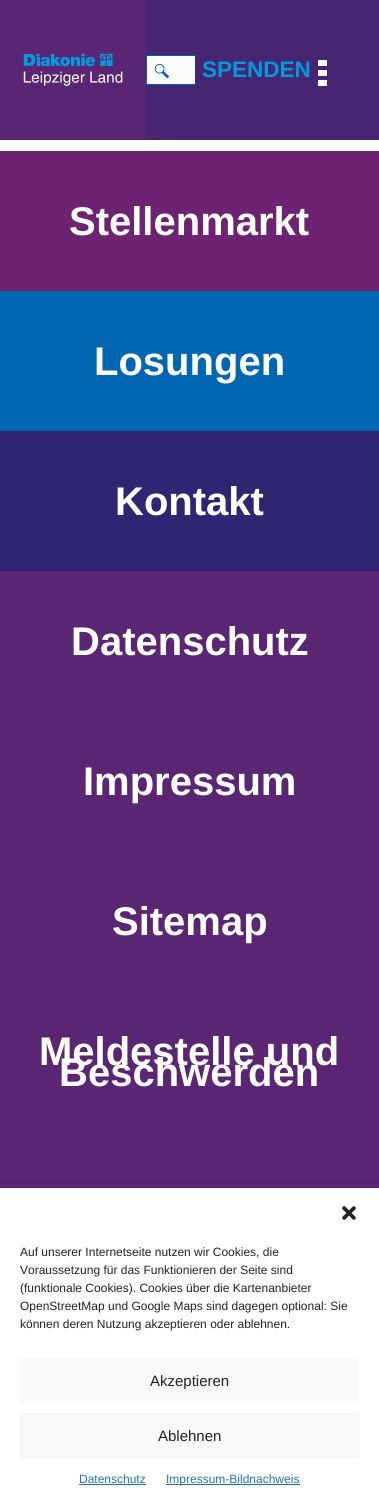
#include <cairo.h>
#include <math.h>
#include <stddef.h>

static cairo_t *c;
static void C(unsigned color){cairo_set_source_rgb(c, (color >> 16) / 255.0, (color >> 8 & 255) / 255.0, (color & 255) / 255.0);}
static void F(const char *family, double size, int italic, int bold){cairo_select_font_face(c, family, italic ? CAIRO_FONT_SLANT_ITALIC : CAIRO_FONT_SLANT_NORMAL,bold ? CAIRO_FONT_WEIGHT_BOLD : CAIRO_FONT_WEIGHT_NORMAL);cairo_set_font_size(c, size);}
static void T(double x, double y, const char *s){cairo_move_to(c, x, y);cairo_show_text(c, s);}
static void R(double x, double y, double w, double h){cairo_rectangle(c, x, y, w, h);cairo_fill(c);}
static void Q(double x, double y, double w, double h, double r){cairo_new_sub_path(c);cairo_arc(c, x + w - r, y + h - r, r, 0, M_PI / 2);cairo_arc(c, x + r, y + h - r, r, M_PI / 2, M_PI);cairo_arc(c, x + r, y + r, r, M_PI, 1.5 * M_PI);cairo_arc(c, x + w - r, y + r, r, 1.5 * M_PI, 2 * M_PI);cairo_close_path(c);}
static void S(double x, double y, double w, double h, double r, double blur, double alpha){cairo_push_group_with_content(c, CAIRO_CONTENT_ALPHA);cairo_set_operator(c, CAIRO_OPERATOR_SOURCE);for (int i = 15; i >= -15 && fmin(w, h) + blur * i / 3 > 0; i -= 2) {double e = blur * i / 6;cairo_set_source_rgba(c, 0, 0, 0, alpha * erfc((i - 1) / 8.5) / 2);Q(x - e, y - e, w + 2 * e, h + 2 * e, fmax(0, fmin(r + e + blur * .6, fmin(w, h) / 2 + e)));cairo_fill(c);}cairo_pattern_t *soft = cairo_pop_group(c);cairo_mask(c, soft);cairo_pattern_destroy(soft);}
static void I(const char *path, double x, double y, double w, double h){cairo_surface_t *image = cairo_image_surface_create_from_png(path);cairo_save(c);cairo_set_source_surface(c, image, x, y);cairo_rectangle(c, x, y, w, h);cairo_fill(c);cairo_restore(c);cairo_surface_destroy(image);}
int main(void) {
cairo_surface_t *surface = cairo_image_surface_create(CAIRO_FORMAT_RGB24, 379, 1505);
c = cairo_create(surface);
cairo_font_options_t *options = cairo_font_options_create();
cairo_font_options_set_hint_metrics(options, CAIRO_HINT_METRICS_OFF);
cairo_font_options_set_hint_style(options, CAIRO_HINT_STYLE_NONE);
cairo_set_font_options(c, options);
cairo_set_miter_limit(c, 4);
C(0x5a2572);
cairo_paint(c);
C(0x462672);
R(146,0,233,140);
I("1.png",23,53,100,33);
C(0xfcfcfc);
R(147,56,48,28);
I("2.png",154,63,16,16);
cairo_rectangle(c,146.5,55.5,50,29);
C(0x005ec2);
cairo_set_line_width(c,1);
cairo_stroke(c);
C(0x462672);
R(195,55,2,30);
F("Liberation Sans",22.5,0,1);
C(0x009bdc);
T(202,77,"SPENDEN");
C(0xffffff);
R(318,70,9,6);
R(318,60,9,6);
R(318,80,9,6);
R(0,140,379,11);
C(0x6e2272);
R(0,151,379,140);
F("Liberation Sans",40,0,1);
C(0xffffff);
T(69,235,"Stellenmarkt");
C(0x0066b1);
R(0,291,379,140);
C(0xffffff);
T(94,375,"Losungen");
C(0x2e2672);
R(0,431,379,140);
C(0xffffff);
T(115,515,"Kontakt");
T(71,655,"Datenschutz");
T(83,795,"Impressum");
T(112,935,"Sitemap");
T(39,1065,"Meldestelle und");
T(59,1086,"Beschwerden");
C(0x000000);
S(0,1198,379,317,0,10,.19);
C(0xffffff);
R(0,1188,379,317);
I("3.png",342,1206,14,14);
F("Liberation Sans",12,0,0);
C(0x222222);
T(20,1256,"Auf unserer Internetseite nutzen wir Cookies, die");
T(20,1274,"Voraussetzung für das Funktionieren der Seite sind");
T(20,1292,"(funktionale Cookies). Cookies über die Kartenanbieter");
T(20,1310,"OpenStreetMap und Google Maps sind dagegen optional: Sie");
T(20,1328,"können deren Nutzung akzeptieren oder ablehnen.");
C(0xf9f9f9);
R(20,1358,339,45);
F("Liberation Sans",15,0,0);
C(0x222222);
T(150,1386,"Akzeptieren");
C(0xf9f9f9);
cairo_rectangle(c,20.5,1413.5,338,44);
cairo_fill_preserve(c);
C(0xf2f2f2);
cairo_stroke(c);
C(0x222222);
T(158,1441,"Ablehnen");
F("Liberation Sans",12,0,0);
C(0x1e73be);
T(79,1483,"Datenschutz");
R(79,1484,67,1);
R(166,1484,134,1);
T(166,1483,"Impressum-Bildnachweis");
cairo_surface_write_to_png(surface, "o.png");
cairo_font_options_destroy(options);
cairo_destroy(c);
cairo_surface_destroy(surface);
return 0;
}
